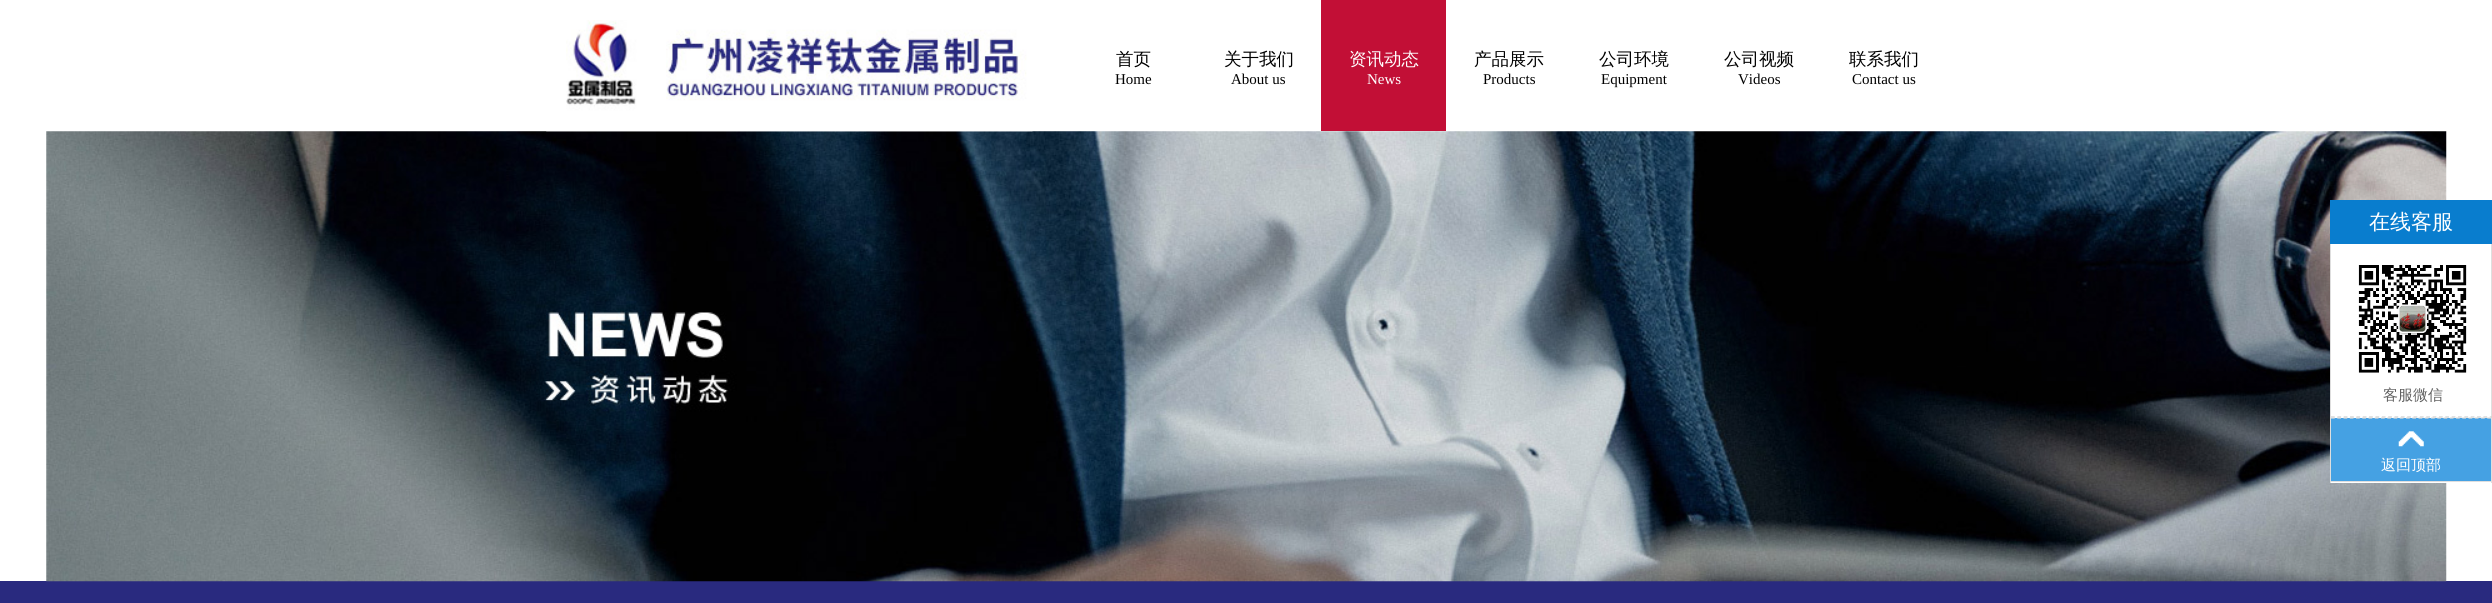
#include <cairo.h>
#include <math.h>
#include <stddef.h>

static cairo_t *c;
static void C(unsigned color){cairo_set_source_rgb(c, (color >> 16) / 255.0, (color >> 8 & 255) / 255.0, (color & 255) / 255.0);}
static void F(const char *family, double size, int italic, int bold){cairo_select_font_face(c, family, italic ? CAIRO_FONT_SLANT_ITALIC : CAIRO_FONT_SLANT_NORMAL,bold ? CAIRO_FONT_WEIGHT_BOLD : CAIRO_FONT_WEIGHT_NORMAL);cairo_set_font_size(c, size);}
static void T(double x, double y, const char *s){cairo_move_to(c, x, y);cairo_show_text(c, s);}
static void R(double x, double y, double w, double h){cairo_rectangle(c, x, y, w, h);cairo_fill(c);}
static void I(const char *path, double x, double y, double w, double h){cairo_surface_t *image = cairo_image_surface_create_from_png(path);cairo_save(c);cairo_set_source_surface(c, image, x, y);cairo_rectangle(c, x, y, w, h);cairo_fill(c);cairo_restore(c);cairo_surface_destroy(image);}
int main(void) {
cairo_surface_t *surface = cairo_image_surface_create(CAIRO_FORMAT_RGB24, 2492, 603);
c = cairo_create(surface);
cairo_font_options_t *options = cairo_font_options_create();
cairo_font_options_set_hint_metrics(options, CAIRO_HINT_METRICS_OFF);
cairo_font_options_set_hint_style(options, CAIRO_HINT_STYLE_NONE);
cairo_set_font_options(c, options);
cairo_set_miter_limit(c, 4);
C(0xffffff);
cairo_paint(c);
C(0x292a7f);
R(0,581,2492,22);
I("2.png",46,131,2401,451);
I("1.png",546,20,487,112);
F("WenQuanYi Zen Hei Medium",17.5,0,0);
C(0x000000);
T(1116,65,"首页");
F("Liberation Serif",15,0,0);
T(1115,84,"Home");
F("WenQuanYi Zen Hei Medium",17.5,0,0);
T(1224,65,"关于我们");
F("Liberation Serif",15,0,0);
T(1231,84,"About us");
C(0xc20f36);
R(1321,0,125,131);
F("WenQuanYi Zen Hei Medium",17.5,0,0);
C(0xffffff);
T(1349,65,"资讯动态");
F("Liberation Serif",15,0,0);
T(1367,84,"News");
F("WenQuanYi Zen Hei Medium",17.5,0,0);
C(0x000000);
T(1474,65,"产品展示");
F("Liberation Serif",15,0,0);
T(1483,84,"Products");
F("WenQuanYi Zen Hei Medium",17.5,0,0);
T(1599,65,"公司环境");
F("Liberation Serif",15,0,0);
T(1601,84,"Equipment");
F("WenQuanYi Zen Hei Medium",17.5,0,0);
T(1724,65,"公司视频");
F("Liberation Serif",15,0,0);
T(1738,84,"Videos");
F("WenQuanYi Zen Hei Medium",17.5,0,0);
T(1849,65,"联系我们");
F("Liberation Serif",15,0,0);
T(1852,84,"Contact us");
C(0xffffff);
R(2331,244,116,239);
C(0x097dce);
R(2330,200,162,44);
F("WenQuanYi Zen Hei Medium",21,0,0);
C(0xffffff);
T(2369,229,"在线客服");
C(0xdedede);
R(2491,244,1,239);
R(2330,481,162,1);
R(2330,244,1,239);
cairo_new_path(c);
cairo_move_to(c,2331,417);
cairo_line_to(c,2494,417);
C(0xcecece);
cairo_set_line_width(c,1.2);
cairo_set_dash(c,(double[]){3.75,2.6},2,0);
cairo_stroke(c);
I("3.png",2358,265,109,108);
F("WenQuanYi Zen Hei Medium",15,0,0);
C(0x616161);
T(2383,400,"客服微信");
C(0x45a1e3);
R(2331,418,160,63);
I("4.png",2398,431,26,16);
cairo_new_path(c);
cairo_move_to(c,2331,418);
cairo_line_to(c,2491,418);
C(0xdedede);
cairo_set_dash(c,(double[]){3.75,2.5},2,0);
cairo_stroke(c);
C(0xffffff);
T(2381,470,"返回顶部");
cairo_surface_write_to_png(surface, "o.png");
cairo_font_options_destroy(options);
cairo_destroy(c);
cairo_surface_destroy(surface);
return 0;
}
